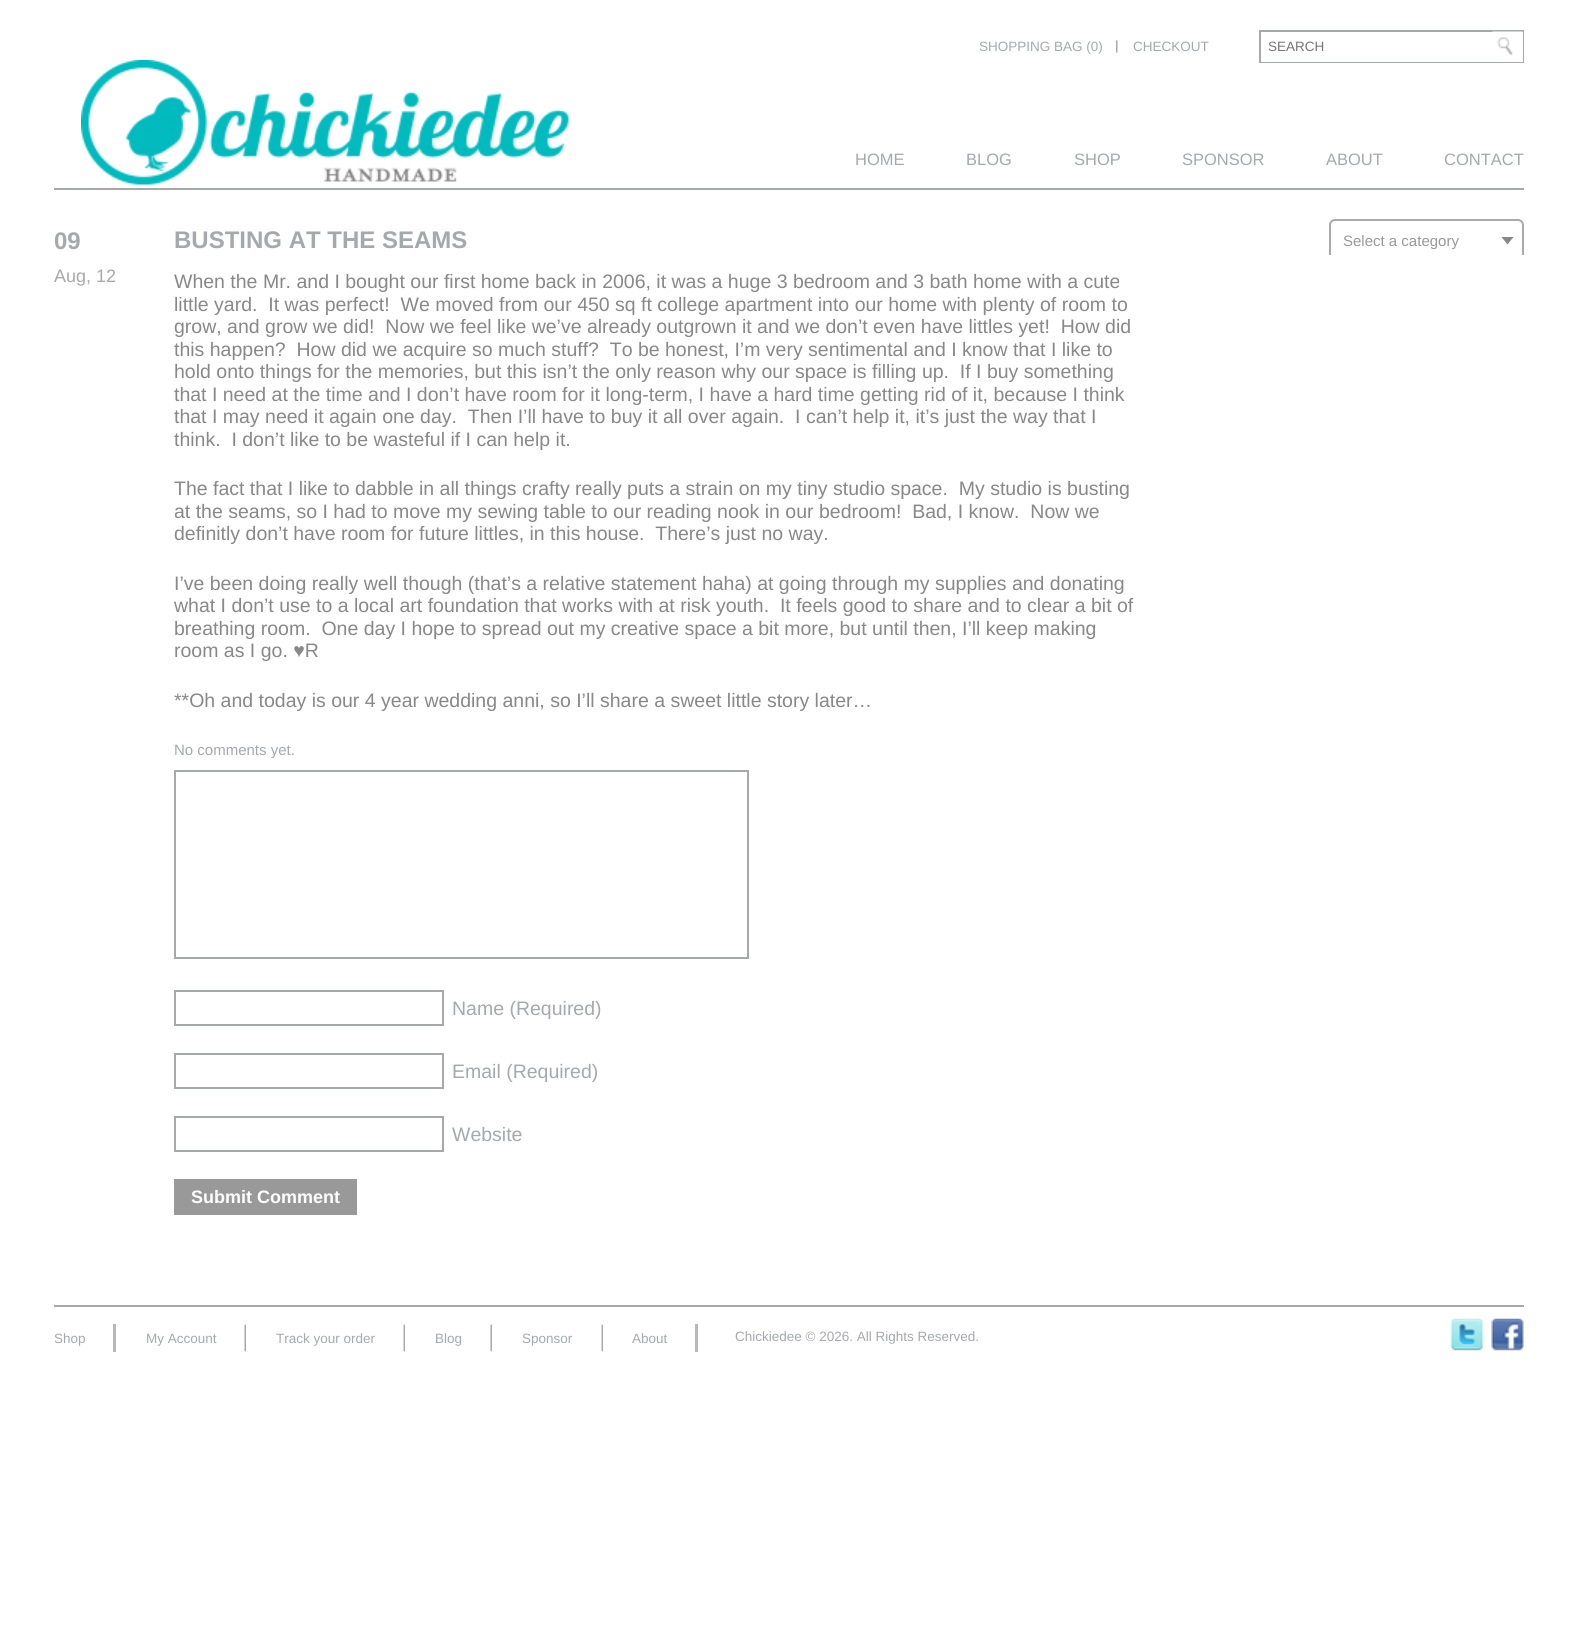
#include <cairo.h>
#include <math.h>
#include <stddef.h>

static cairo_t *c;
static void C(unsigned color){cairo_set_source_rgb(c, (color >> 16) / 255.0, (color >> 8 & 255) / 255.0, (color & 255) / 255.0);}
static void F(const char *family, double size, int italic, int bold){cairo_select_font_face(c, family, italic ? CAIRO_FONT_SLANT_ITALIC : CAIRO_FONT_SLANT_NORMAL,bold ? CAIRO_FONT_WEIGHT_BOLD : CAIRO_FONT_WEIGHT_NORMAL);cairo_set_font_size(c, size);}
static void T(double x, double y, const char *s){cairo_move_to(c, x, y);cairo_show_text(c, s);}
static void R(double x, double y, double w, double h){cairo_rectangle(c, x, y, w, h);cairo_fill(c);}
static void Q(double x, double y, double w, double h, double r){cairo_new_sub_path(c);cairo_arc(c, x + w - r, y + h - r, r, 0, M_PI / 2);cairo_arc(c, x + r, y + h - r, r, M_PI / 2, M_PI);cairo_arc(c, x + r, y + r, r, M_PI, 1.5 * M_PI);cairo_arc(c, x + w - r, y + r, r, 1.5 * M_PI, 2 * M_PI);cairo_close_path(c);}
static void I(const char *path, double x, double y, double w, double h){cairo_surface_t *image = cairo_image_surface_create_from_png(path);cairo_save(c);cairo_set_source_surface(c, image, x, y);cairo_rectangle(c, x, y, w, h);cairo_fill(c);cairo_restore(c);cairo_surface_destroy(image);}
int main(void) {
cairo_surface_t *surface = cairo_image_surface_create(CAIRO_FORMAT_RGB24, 1577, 1648);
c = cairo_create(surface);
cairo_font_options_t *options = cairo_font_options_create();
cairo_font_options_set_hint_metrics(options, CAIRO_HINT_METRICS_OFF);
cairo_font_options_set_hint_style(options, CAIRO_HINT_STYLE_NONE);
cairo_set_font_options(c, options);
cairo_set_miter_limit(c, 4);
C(0xffffff);
cairo_paint(c);
C(0xa6a8ac);
R(54,188,1470,2);
I("1.png",81,60,488,125);
I("2.png",1116,40,2,13);
F("Liberation Sans",13.5,0,0);
T(979,51,"SHOPPING BAG (0)");
T(1133,51,"CHECKOUT");
R(1259,30,265,2);
R(1259,62,234,1);
R(1259,30,2,33);
C(0x757575);
T(1268,51,"SEARCH");
C(0xa6a8ac);
R(1523,30,1,33);
R(1493,62,31,1);
I("3.png",1492,31,31,25);
F("Liberation Sans",16.5,0,0);
T(855,165,"HOME");
T(966,165,"BLOG");
T(1074,165,"SHOP");
T(1182,165,"SPONSOR");
T(1326,165,"ABOUT");
T(1444,165,"CONTACT");
F("Liberation Sans",24,0,1);
T(54,249,"09");
F("Liberation Sans",18,0,0);
T(54,282,"Aug, 12");
F("Liberation Sans",24,0,1);
T(174,248,"BUSTING AT THE SEAMS");
F("Liberation Sans",19.5,0,0);
C(0x888888);
T(174,288,"When the Mr. and I bought our first home back in 2006, it was a huge 3 bedroom and 3 bath home with a cute");
T(174,311,"little yard.  It was perfect!  We moved from our 450 sq ft college apartment into our home with plenty of room to");
T(174,333,"grow, and grow we did!  Now we feel like we’ve already outgrown it and we don’t even have littles yet!  How did");
T(174,356,"this happen?  How did we acquire so much stuff?  To be honest, I’m very sentimental and I know that I like to");
T(174,378,"hold onto things for the memories, but this isn’t the only reason why our space is filling up.  If I buy something");
T(174,401,"that I need at the time and I don’t have room for it long-term, I have a hard time getting rid of it, because I think");
T(174,423,"that I may need it again one day.  Then I’ll have to buy it all over again.  I can’t help it, it’s just the way that I");
T(174,446,"think.  I don’t like to be wasteful if I can help it.");
T(174,495,"The fact that I like to dabble in all things crafty really puts a strain on my tiny studio space.  My studio is busting");
T(174,518,"at the seams, so I had to move my sewing table to our reading nook in our bedroom!  Bad, I know.  Now we");
T(174,540,"definitly don’t have room for future littles, in this house.  There’s just no way.");
T(174,590,"I’ve been doing really well though (that’s a relative statement haha) at going through my supplies and donating");
T(174,612,"what I don’t use to a local art foundation that works with at risk youth.  It feels good to share and to clear a bit of");
T(174,635,"breathing room.  One day I hope to spread out my creative space a bit more, but until then, I’ll keep making");
T(174,657,"room as I go. ♥R");
T(174,707,"**Oh and today is our 4 year wedding anni, so I’ll share a sweet little story later…");
F("Liberation Sans",15,0,0);
C(0xa6a8ac);
T(174,755,"No comments yet.");
cairo_rectangle(c,175,771,573,187);
cairo_stroke(c);
cairo_rectangle(c,175,991,268,34);
cairo_stroke(c);
F("Liberation Sans",19.5,0,0);
T(452,1015,"Name (Required)");
cairo_rectangle(c,175,1054,268,34);
cairo_stroke(c);
T(452,1078,"Email (Required)");
cairo_rectangle(c,175,1117,268,34);
cairo_stroke(c);
T(452,1141,"Website");
C(0x999999);
R(174,1179,183,36);
F("Liberation Sans",18,0,1);
C(0xffffff);
T(191,1203,"Submit Comment");
cairo_save(c);
cairo_rectangle(c,1329,219,195,36);
cairo_clip(c);
Q(1330,220,193,40,5);
C(0xaaaaaa);
cairo_stroke(c);
cairo_restore(c);
F("Liberation Sans",15,0,0);
C(0x999999);
T(1343,246,"Select a category");
C(0x888888);
cairo_new_path(c);
cairo_move_to(c,1501.5,237);
cairo_line_to(c,1513.5,237);
cairo_line_to(c,1507.5,244.5);
cairo_close_path(c);
cairo_fill(c);
C(0xa6a8ac);
R(54,1305,1470,2);
C(0xb6b8bb);
R(113,1324,3,28);
F("Liberation Sans",13.5,0,0);
C(0xa6a8ac);
T(54,1343,"Shop");
I("4.png",244,1324,2,28);
T(146,1343,"My Account");
I("5.png",403,1324,2,28);
T(276,1343,"Track your order");
I("4.png",490,1324,2,28);
T(435,1343,"Blog");
I("5.png",601,1324,2,28);
T(522,1343,"Sponsor");
C(0xb6b8bb);
R(695,1324,3,28);
C(0xa6a8ac);
T(632,1343,"About");
T(735,1341,"Chickiedee © 2026. All Rights Reserved.");
I("6.png",1450,1318,34,33);
I("7.png",1491,1318,33,33);
cairo_surface_write_to_png(surface, "o.png");
cairo_font_options_destroy(options);
cairo_destroy(c);
cairo_surface_destroy(surface);
return 0;
}
